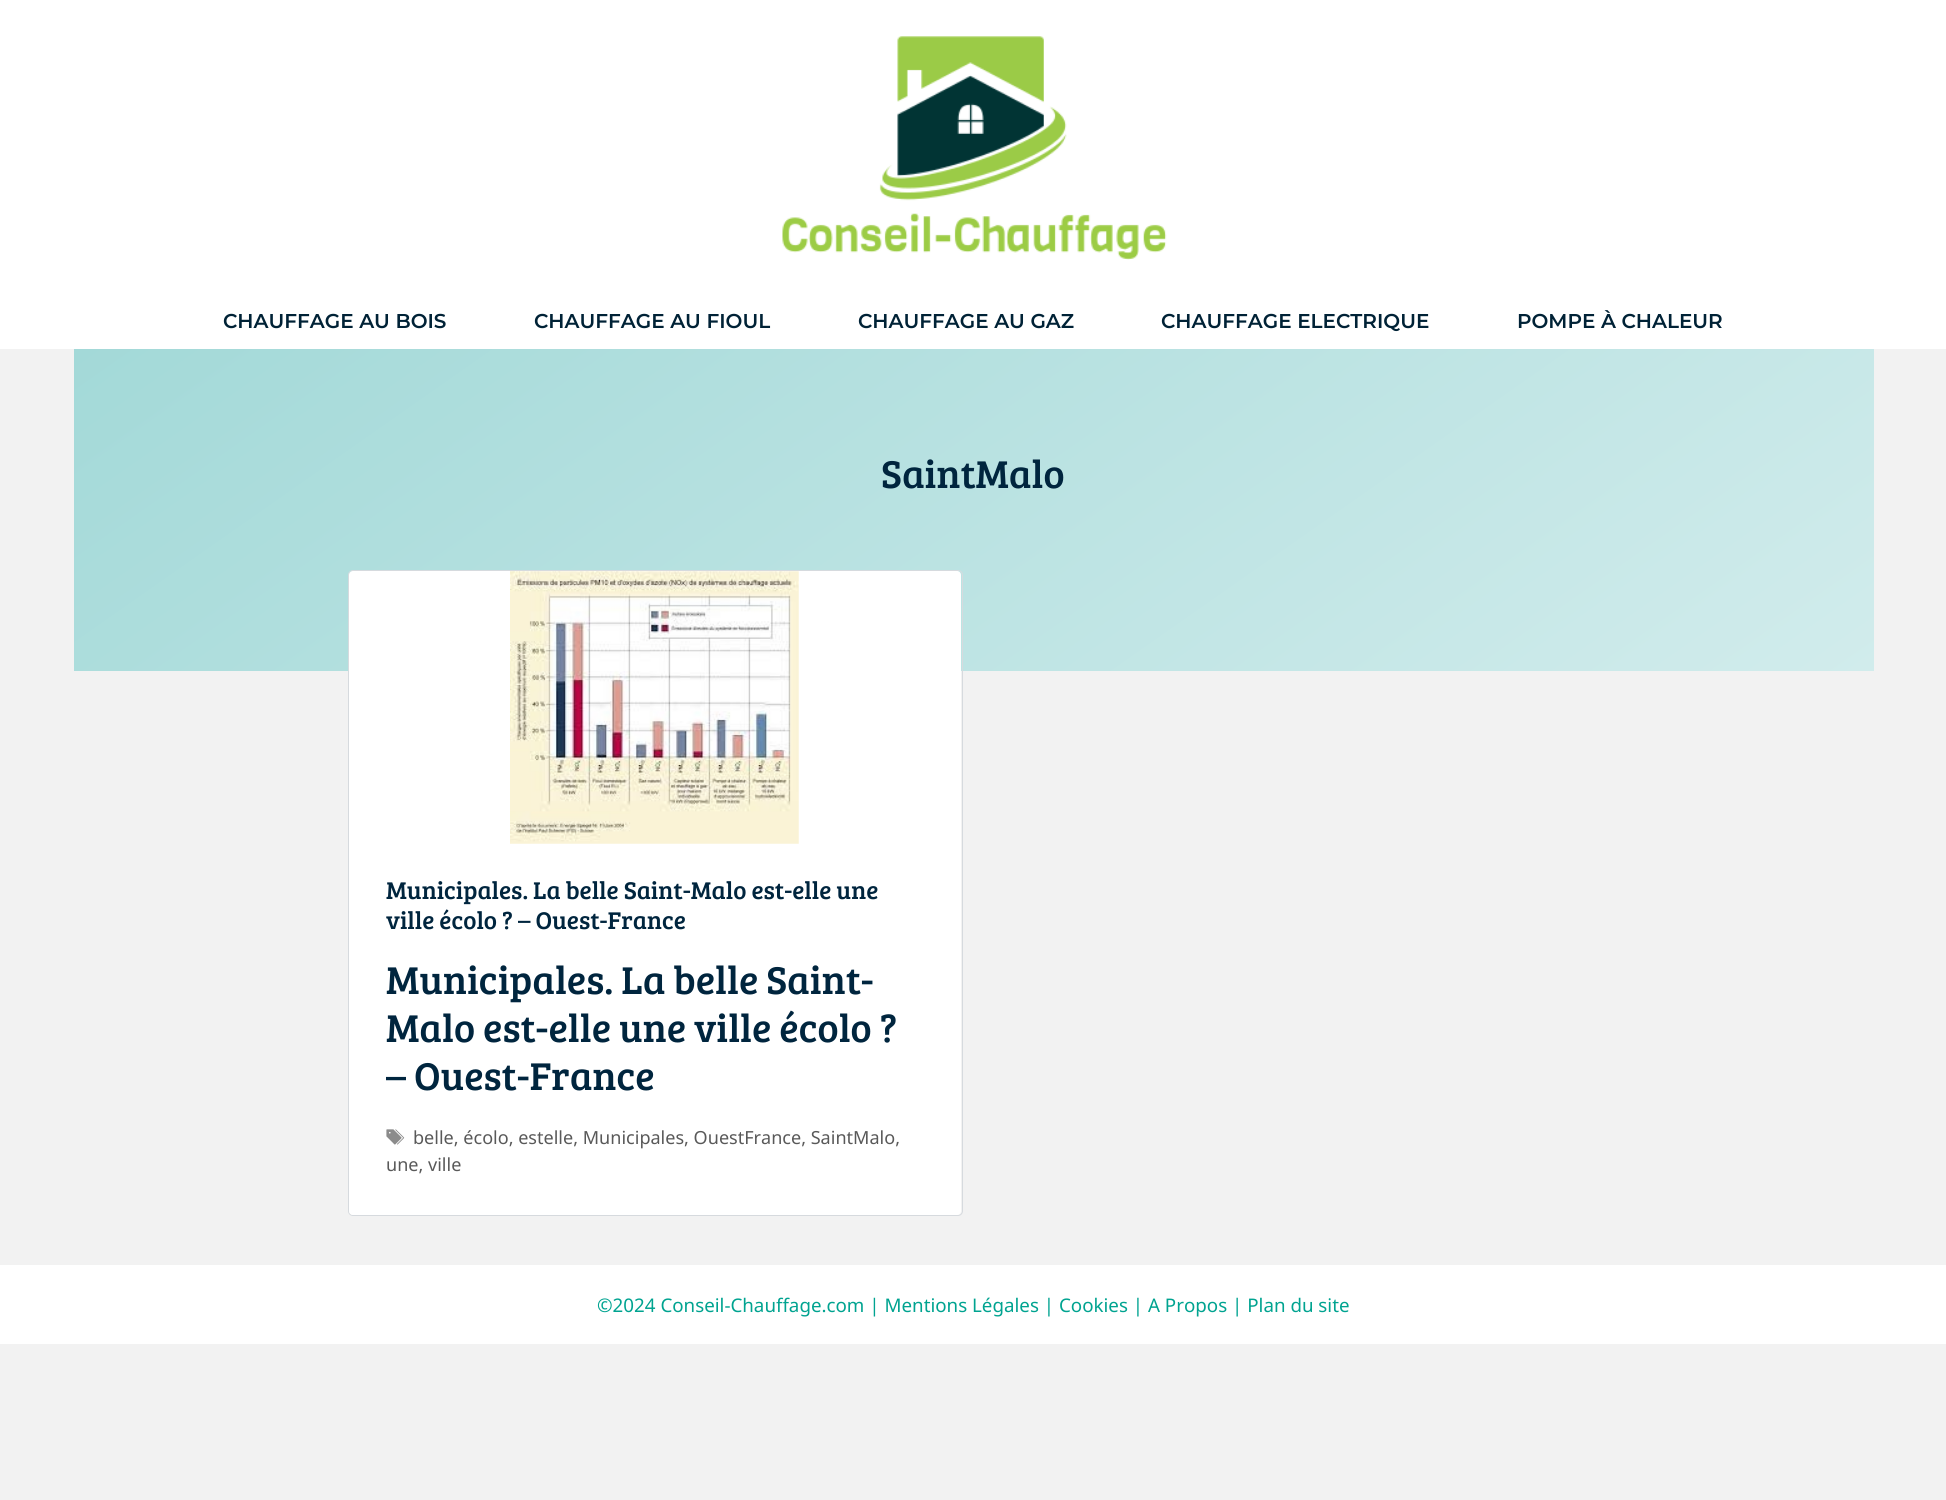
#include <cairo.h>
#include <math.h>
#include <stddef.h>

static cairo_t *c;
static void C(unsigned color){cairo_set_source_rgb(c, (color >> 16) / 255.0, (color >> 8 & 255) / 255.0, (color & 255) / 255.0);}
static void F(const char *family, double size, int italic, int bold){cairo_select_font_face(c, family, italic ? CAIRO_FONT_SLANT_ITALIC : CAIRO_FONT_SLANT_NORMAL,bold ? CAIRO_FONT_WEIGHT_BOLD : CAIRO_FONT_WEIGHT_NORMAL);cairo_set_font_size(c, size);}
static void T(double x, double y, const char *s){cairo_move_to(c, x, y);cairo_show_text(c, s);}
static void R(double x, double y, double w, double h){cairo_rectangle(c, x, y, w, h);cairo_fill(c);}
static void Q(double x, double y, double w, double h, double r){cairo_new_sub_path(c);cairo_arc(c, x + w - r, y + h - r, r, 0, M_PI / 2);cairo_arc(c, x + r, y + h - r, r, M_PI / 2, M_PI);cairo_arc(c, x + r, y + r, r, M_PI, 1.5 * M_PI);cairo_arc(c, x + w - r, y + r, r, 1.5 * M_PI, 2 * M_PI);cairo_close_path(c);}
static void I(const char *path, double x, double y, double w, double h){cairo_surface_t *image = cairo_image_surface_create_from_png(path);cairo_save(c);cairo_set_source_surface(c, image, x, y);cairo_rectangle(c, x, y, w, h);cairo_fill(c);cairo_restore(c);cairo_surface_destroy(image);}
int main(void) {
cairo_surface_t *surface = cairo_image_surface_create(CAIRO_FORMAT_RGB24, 1946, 1500);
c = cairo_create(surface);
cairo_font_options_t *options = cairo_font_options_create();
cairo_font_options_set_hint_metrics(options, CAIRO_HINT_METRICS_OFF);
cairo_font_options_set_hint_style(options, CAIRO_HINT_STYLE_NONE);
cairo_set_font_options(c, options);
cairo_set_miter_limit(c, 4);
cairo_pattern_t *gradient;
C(0xf2f2f2);
cairo_paint(c);
C(0xffffff);
R(0,0,1946,349);
I("1.png",782,36,385,224);
F("Montserrat SemiBold",20,0,0);
C(0x002236);
T(223,328,"CHAUFFAGE AU BOIS");
T(534,328,"CHAUFFAGE AU FIOUL");
T(858,328,"CHAUFFAGE AU GAZ");
T(1161,328,"CHAUFFAGE ELECTRIQUE");
T(1517,328,"POMPE À CHALEUR");
gradient = cairo_pattern_create_linear(602,-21,1346,1041);
cairo_pattern_add_color_stop_rgba(gradient,0,0.639,0.851,0.847,1);
cairo_pattern_add_color_stop_rgba(gradient,1,0.82,0.925,0.925,1);
cairo_set_source(c,gradient);
cairo_pattern_destroy(gradient);
R(74,349,1800,322);
F("Bree Serif",40,0,0);
C(0x00253e);
T(881,488,"SaintMalo");
Q(348.5,570.5,614,645,4.5);
C(0xd6dade);
cairo_set_line_width(c,1);
cairo_stroke(c);
C(0xffffff);
Q(349,571,612,644,4);
cairo_fill(c);
I("2.png",510,571,289,273);
F("Bree Serif",25,0,0);
C(0x00253e);
T(386,899,"Municipales. La belle Saint-Malo est-elle une");
T(386,929,"ville écolo ? – Ouest-France");
F("Bree Serif",40,0,0);
T(386,994,"Municipales. La belle Saint-");
T(386,1042,"Malo est-elle une ville écolo ?");
T(386,1090,"– Ouest-France");
I("3.png",386,1129,19,16);
F("Noto Sans",18.05,0,0);
C(0x595959);
T(413,1144,"belle, écolo, estelle, Municipales, OuestFrance, SaintMalo,");
T(386,1171,"une, ville");
C(0xffffff);
R(0,1265,1946,79);
F("Noto Sans",18.75,0,0);
C(0x00a390);
T(597,1312,"©2024 Conseil-Chauffage.com | Mentions Légales | Cookies | A Propos | Plan du site");
cairo_surface_write_to_png(surface, "o.png");
cairo_font_options_destroy(options);
cairo_destroy(c);
cairo_surface_destroy(surface);
return 0;
}
